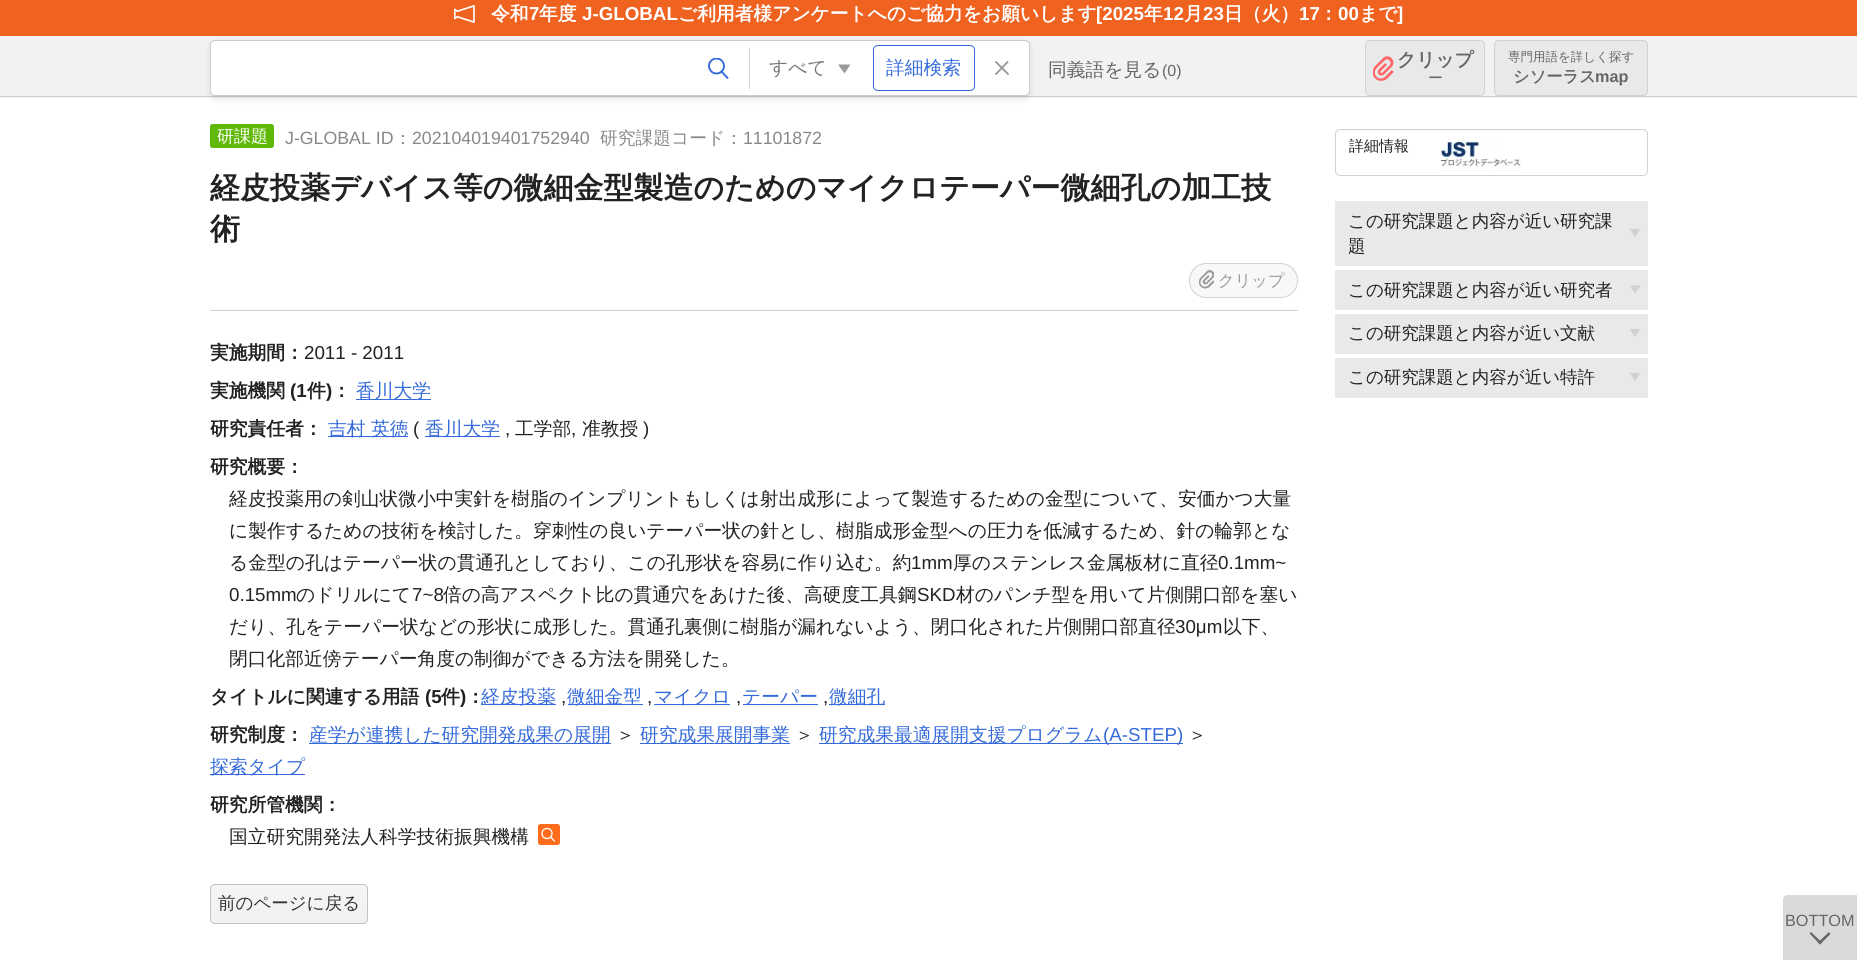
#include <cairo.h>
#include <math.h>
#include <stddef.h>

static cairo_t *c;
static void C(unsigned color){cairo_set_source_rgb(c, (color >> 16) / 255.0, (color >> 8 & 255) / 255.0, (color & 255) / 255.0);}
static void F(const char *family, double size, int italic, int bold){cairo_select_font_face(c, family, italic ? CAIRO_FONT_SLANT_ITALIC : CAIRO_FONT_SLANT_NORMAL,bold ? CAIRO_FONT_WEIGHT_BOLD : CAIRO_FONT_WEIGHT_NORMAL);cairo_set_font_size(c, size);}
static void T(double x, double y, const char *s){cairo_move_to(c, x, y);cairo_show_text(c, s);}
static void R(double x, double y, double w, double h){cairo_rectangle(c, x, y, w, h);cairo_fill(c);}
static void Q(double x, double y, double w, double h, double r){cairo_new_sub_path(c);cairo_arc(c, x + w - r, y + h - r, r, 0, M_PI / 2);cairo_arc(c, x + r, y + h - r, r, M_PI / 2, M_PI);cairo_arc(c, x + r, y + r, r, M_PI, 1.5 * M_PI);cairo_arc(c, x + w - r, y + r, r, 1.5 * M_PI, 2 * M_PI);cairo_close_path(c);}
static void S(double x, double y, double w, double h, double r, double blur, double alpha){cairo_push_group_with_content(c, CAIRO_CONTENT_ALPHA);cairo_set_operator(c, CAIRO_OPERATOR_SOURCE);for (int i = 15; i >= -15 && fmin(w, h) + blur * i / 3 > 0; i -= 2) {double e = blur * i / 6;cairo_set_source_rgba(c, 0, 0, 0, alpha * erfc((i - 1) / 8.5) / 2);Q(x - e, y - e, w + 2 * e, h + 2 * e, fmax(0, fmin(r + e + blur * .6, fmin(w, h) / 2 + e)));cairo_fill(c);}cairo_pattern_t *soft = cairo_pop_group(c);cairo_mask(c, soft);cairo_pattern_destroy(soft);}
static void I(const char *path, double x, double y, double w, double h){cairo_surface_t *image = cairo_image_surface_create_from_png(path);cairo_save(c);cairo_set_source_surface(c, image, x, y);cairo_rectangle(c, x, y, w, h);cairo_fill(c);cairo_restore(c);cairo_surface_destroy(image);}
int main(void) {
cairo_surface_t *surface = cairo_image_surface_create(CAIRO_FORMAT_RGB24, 1857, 969);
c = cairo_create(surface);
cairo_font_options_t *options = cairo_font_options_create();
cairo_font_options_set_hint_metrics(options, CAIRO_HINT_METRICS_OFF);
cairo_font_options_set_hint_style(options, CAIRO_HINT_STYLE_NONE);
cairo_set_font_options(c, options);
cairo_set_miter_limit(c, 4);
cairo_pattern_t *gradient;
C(0xffffff);
cairo_paint(c);
C(0xf2f2f2);
R(0,36,1857,62);
C(0xd1d1d1);
R(0,96,1857,1);
C(0xef6220);
R(0,0,1857,36);
I("1.png",454,5,21,18);
F("WenQuanYi Zen Hei",18.75,0,1);
C(0xffffff);
T(491,20,"令和");
F("Liberation Sans",18.75,0,1);
T(529,20,"7");
F("WenQuanYi Zen Hei",18.75,0,1);
T(539,20,"年度");
F("Liberation Sans",18.75,0,1);
T(582,20,"J-GLOBAL");
F("WenQuanYi Zen Hei",18.75,0,1);
T(678,20,"ご利用者様アンケートへのご協力をお願いします");
F("Liberation Sans",18.75,0,1);
T(1096,20,"[2025");
F("WenQuanYi Zen Hei",18.75,0,1);
T(1144,20,"年");
F("Liberation Sans",18.75,0,1);
T(1163,20,"12");
F("WenQuanYi Zen Hei",18.75,0,1);
T(1184,20,"月");
F("Liberation Sans",18.75,0,1);
T(1203,20,"23");
F("WenQuanYi Zen Hei",18.75,0,1);
T(1224,20,"日（火）");
F("Liberation Sans",18.75,0,1);
T(1299,20,"17");
F("WenQuanYi Zen Hei",18.75,0,1);
T(1319,20,"：");
F("Liberation Sans",18.75,0,1);
T(1338,20,"00");
F("WenQuanYi Zen Hei",18.75,0,1);
T(1359,20,"まで");
F("Liberation Sans",18.75,0,1);
T(1397,20,"]");
C(0x000000);
S(210,43,820,56,5,3,.1);
C(0xffffff);
Q(210.5,40.5,819,55,4.5);
cairo_fill_preserve(c);
C(0xcccccc);
cairo_set_line_width(c,1);
cairo_stroke(c);
cairo_save(c);
Q(211,41,818,54,4);
cairo_clip(c);
C(0xffffff);
Q(211,41,475,54,5);
cairo_fill(c);
cairo_restore(c);
cairo_save(c);
cairo_rectangle(c,708,58,21,21);
cairo_clip(c);
cairo_arc(c,716.5,66,7.5,0,2 * M_PI);
C(0x346ad9);
cairo_set_line_width(c,1.9);
cairo_stroke(c);
cairo_restore(c);
cairo_new_path(c);
cairo_move_to(c,721.5,71.5);
cairo_line_to(c,727.5,78);
C(0x346ad9);
cairo_set_line_width(c,1.9);
cairo_set_line_cap(c,CAIRO_LINE_CAP_ROUND);
cairo_set_line_join(c,CAIRO_LINE_JOIN_ROUND);
cairo_stroke(c);
C(0x999999);
cairo_new_path(c);
cairo_move_to(c,850.5,64.5);
cairo_line_to(c,844.5,73.5);
cairo_line_to(c,838,64.5);
cairo_close_path(c);
cairo_fill(c);
C(0xd1d1d1);
R(749,48,1,41);
F("WenQuanYi Zen Hei Medium",18.75,0,0);
C(0x777777);
T(769,74,"すべて");
Q(873.5,45.5,101,45,4.5);
C(0x346ad9);
cairo_set_line_width(c,1);
cairo_set_line_cap(c,CAIRO_LINE_CAP_BUTT);
cairo_set_line_join(c,CAIRO_LINE_JOIN_MITER);
cairo_stroke(c);
T(886,74,"詳細検索");
cairo_new_path(c);
cairo_move_to(c,996,74);
cairo_line_to(c,1007.5,62);
cairo_move_to(c,996,62);
cairo_line_to(c,1008,74);
C(0x999999);
cairo_set_line_width(c,1.9);
cairo_set_line_cap(c,CAIRO_LINE_CAP_ROUND);
cairo_set_line_join(c,CAIRO_LINE_JOIN_ROUND);
cairo_stroke(c);
C(0x666666);
T(1048,76,"同義語を見る");
F("Liberation Sans",16,0,0);
T(1162,76,"(0)");
C(0xe9e9e9);
Q(1365,40,120,56,5);
cairo_fill(c);
I("2.png",1373,56,21,25);
Q(1365.5,40.5,119,55,4.5);
C(0xd1d1d1);
cairo_set_line_width(c,1);
cairo_set_line_cap(c,CAIRO_LINE_CAP_BUTT);
cairo_set_line_join(c,CAIRO_LINE_JOIN_MITER);
cairo_stroke(c);
F("WenQuanYi Zen Hei",18.75,0,1);
C(0x666666);
T(1397,66,"クリップ");
F("WenQuanYi Zen Hei Medium",15,0,0);
T(1428,83,"ー");
C(0xe9e9e9);
Q(1494.5,40.5,153,55,4.5);
cairo_fill_preserve(c);
C(0xd1d1d1);
cairo_stroke(c);
F("WenQuanYi Zen Hei Medium",12.5,0,0);
C(0x666666);
T(1508,61,"専門用語を詳しく探す");
F("WenQuanYi Zen Hei",16.25,0,1);
T(1513,82,"シソーラス");
F("Liberation Sans",16.25,0,1);
T(1595,82,"map");
C(0xd1d1d1);
R(210,310,1088,1);
C(0x60b909);
Q(210,124,64,24,2.5);
cairo_fill(c);
F("WenQuanYi Zen Hei Medium",17,0,0);
C(0xffffff);
T(217,142,"研課題");
F("Liberation Sans",17.75,0,0);
C(0x888888);
T(285,144,"J-GLOBAL ID");
F("WenQuanYi Zen Hei Medium",17.75,0,0);
T(394,144,"：");
F("Liberation Sans",17.75,0,0);
T(412,144,"202104019401752940");
F("WenQuanYi Zen Hei Medium",17.75,0,0);
T(600,144,"研究課題コード：");
F("Liberation Sans",17.75,0,0);
T(743,144,"11101872");
F("WenQuanYi Zen Hei",30,0,1);
C(0x222222);
T(210,198,"経皮投薬デバイス等の微細金型製造のためのマイクロテーパー微細孔の加工技");
T(210,239,"術");
C(0xf8f8f8);
Q(1189,263,109,35,17.5);
cairo_fill(c);
I("3.png",1199,270,15,19);
Q(1189.5,263.5,108,34,17);
C(0xd1d1d1);
cairo_stroke(c);
F("WenQuanYi Zen Hei Medium",16.25,0,0);
C(0x999999);
T(1218,286,"クリップ");
F("WenQuanYi Zen Hei",18.75,0,1);
C(0x222222);
T(210,359,"実施期間：");
F("Liberation Sans",18.75,0,0);
T(304,359,"2011 - 2011");
F("WenQuanYi Zen Hei",18.75,0,1);
T(210,397,"実施機関");
F("Liberation Sans",18.75,0,1);
T(290,397,"(1");
F("WenQuanYi Zen Hei",18.75,0,1);
T(307,397,"件");
F("Liberation Sans",18.75,0,1);
T(326,397,")");
F("WenQuanYi Zen Hei",18.75,0,1);
T(332,397,"：");
C(0x346ad9);
R(356,399,75,1);
F("WenQuanYi Zen Hei Medium",18.75,0,0);
T(356,397,"香川大学");
F("WenQuanYi Zen Hei",18.75,0,1);
C(0x222222);
T(210,435,"研究責任者：");
C(0x346ad9);
R(328,436,80,1);
F("WenQuanYi Zen Hei Medium",18.75,0,0);
T(328,435,"吉村 英徳");
F("Liberation Sans",18.75,0,0);
C(0x222222);
T(413,435,"(");
C(0x346ad9);
R(425,436,75,1);
F("WenQuanYi Zen Hei Medium",18.75,0,0);
T(425,435,"香川大学");
F("Liberation Sans",18.75,0,0);
C(0x222222);
T(505,435,",");
F("WenQuanYi Zen Hei Medium",18.75,0,0);
T(515,435,"工学部");
F("Liberation Sans",18.75,0,0);
T(571,435,",");
F("WenQuanYi Zen Hei Medium",18.75,0,0);
T(582,435,"准教授");
F("Liberation Sans",18.75,0,0);
T(643,435,")");
F("WenQuanYi Zen Hei",18.75,0,1);
T(210,473,"研究概要：");
F("WenQuanYi Zen Hei Medium",18.75,0,0);
T(229,505,"経皮投薬用の剣山状微小中実針を樹脂のインプリントもしくは射出成形によって製造するための金型について、安価かつ大量");
T(229,537,"に製作するための技術を検討した。穿刺性の良いテーパー状の針とし、樹脂成形金型への圧力を低減するため、針の輪郭とな");
T(229,569,"る金型の孔はテーパー状の貫通孔としており、この孔形状を容易に作り込む。約");
F("Liberation Sans",18.75,0,0);
T(911,569,"1mm");
F("WenQuanYi Zen Hei Medium",18.75,0,0);
T(953,569,"厚のステンレス金属板材に直径");
F("Liberation Sans",18.75,0,0);
T(1218,569,"0.1mm~");
T(229,601,"0.15mm");
F("WenQuanYi Zen Hei Medium",18.75,0,0);
T(296,601,"のドリルにて");
F("Liberation Sans",18.75,0,0);
T(412,601,"7~8");
F("WenQuanYi Zen Hei Medium",18.75,0,0);
T(443,601,"倍の高アスペクト比の貫通穴をあけた後、高硬度工具鋼");
F("Liberation Sans",18.75,0,0);
T(917,601,"SKD");
F("WenQuanYi Zen Hei Medium",18.75,0,0);
T(956,601,"材のパンチ型を用いて片側開口部を塞い");
T(229,633,"だり、孔をテーパー状などの形状に成形した。貫通孔裏側に樹脂が漏れないよう、閉口化された片側開口部直径");
F("Liberation Sans",18.75,0,0);
T(1175,633,"30μm");
F("WenQuanYi Zen Hei Medium",18.75,0,0);
T(1223,633,"以下、");
T(229,665,"閉口化部近傍テーパー角度の制御ができる方法を開発した。");
F("WenQuanYi Zen Hei",18.75,0,1);
T(210,703,"タイトルに関連する用語");
F("Liberation Sans",18.75,0,1);
T(425,703,"(5");
F("WenQuanYi Zen Hei",18.75,0,1);
T(441,703,"件");
F("Liberation Sans",18.75,0,1);
T(460,703,")");
F("WenQuanYi Zen Hei",18.75,0,1);
T(466,703,"：");
C(0x346ad9);
R(481,704,75,1);
F("WenQuanYi Zen Hei Medium",18.75,0,0);
T(481,703,"経皮投薬");
F("Liberation Sans",18.75,0,0);
C(0x222222);
T(561,703,",");
C(0x346ad9);
R(568,704,75,1);
F("WenQuanYi Zen Hei Medium",18.75,0,0);
T(567,703,"微細金型");
F("Liberation Sans",18.75,0,0);
C(0x222222);
T(647,703,",");
C(0x346ad9);
R(654,704,76,1);
F("WenQuanYi Zen Hei Medium",18.75,0,0);
T(654,703,"マイクロ");
F("Liberation Sans",18.75,0,0);
C(0x222222);
T(736,703,",");
C(0x346ad9);
R(743,704,75,1);
F("WenQuanYi Zen Hei Medium",18.75,0,0);
T(742,703,"テーパー");
F("Liberation Sans",18.75,0,0);
C(0x222222);
T(823,703,",");
C(0x346ad9);
R(829,704,56,1);
F("WenQuanYi Zen Hei Medium",18.75,0,0);
T(829,703,"微細孔");
F("WenQuanYi Zen Hei",18.75,0,1);
C(0x222222);
T(210,741,"研究制度：");
C(0x346ad9);
R(309,743,302,1);
F("WenQuanYi Zen Hei Medium",18.75,0,0);
T(309,741,"産学が連携した研究開発成果の展開");
C(0x222222);
T(616,741,"＞");
C(0x346ad9);
R(640,743,150,1);
T(640,741,"研究成果展開事業");
C(0x222222);
T(795,741,"＞");
C(0x346ad9);
R(819,743,364,1);
T(819,741,"研究成果最適展開支援プログラム");
F("Liberation Sans",18.75,0,0);
T(1103,741,"(A-STEP)");
F("WenQuanYi Zen Hei Medium",18.75,0,0);
C(0x222222);
T(1188,741,"＞");
C(0x346ad9);
R(210,774,95,1);
T(210,773,"探索タイプ");
F("WenQuanYi Zen Hei",18.75,0,1);
C(0x222222);
T(210,811,"研究所管機関：");
F("WenQuanYi Zen Hei Medium",18.75,0,0);
T(229,843,"国立研究開発法人科学技術振興機構");
C(0xff6c1c);
Q(538,824,22,21,2.5);
cairo_fill(c);
cairo_arc(c,547,833.5,5,0,2 * M_PI);
C(0xffffff);
cairo_set_line_width(c,1.3);
cairo_stroke(c);
cairo_new_path(c);
cairo_move_to(c,550.5,837);
cairo_line_to(c,554.5,841);
cairo_set_line_cap(c,CAIRO_LINE_CAP_ROUND);
cairo_set_line_join(c,CAIRO_LINE_JOIN_ROUND);
cairo_stroke(c);
cairo_save(c);
Q(210,884,158,40,5);
cairo_clip(c);
gradient = cairo_pattern_create_linear(289,885,289,923);
cairo_pattern_add_color_stop_rgba(gradient,0,0.961,0.961,0.961,1);
cairo_pattern_add_color_stop_rgba(gradient,1,0.945,0.945,0.945,1);
cairo_set_source(c,gradient);
cairo_pattern_destroy(gradient);
R(210,885,158,38);
cairo_restore(c);
Q(210.5,884.5,157,39,4.5);
C(0xc2c2c2);
cairo_set_line_width(c,1);
cairo_set_line_cap(c,CAIRO_LINE_CAP_BUTT);
cairo_set_line_join(c,CAIRO_LINE_JOIN_MITER);
cairo_stroke(c);
F("WenQuanYi Zen Hei Medium",17.5,0,0);
C(0x333333);
T(218,909,"前のページに戻る");
Q(1335.5,129.5,312,46,4.5);
C(0xd1d1d1);
cairo_stroke(c);
F("WenQuanYi Zen Hei Medium",15,0,0);
C(0x222222);
T(1349,151,"詳細情報");
I("4.png",1440,138,81,31);
C(0xe9e9e9);
R(1335,201,313,65);
C(0xd1d1d1);
cairo_new_path(c);
cairo_move_to(c,1640.5,229);
cairo_line_to(c,1635,237);
cairo_line_to(c,1629.5,229);
cairo_close_path(c);
cairo_fill(c);
F("WenQuanYi Zen Hei Medium",17.5,0,0);
C(0x222222);
T(1348,227,"この研究課題と内容が近い研究課");
T(1348,252,"題");
C(0xe9e9e9);
R(1335,270,313,40);
C(0xd1d1d1);
cairo_new_path(c);
cairo_move_to(c,1640.5,285.5);
cairo_line_to(c,1635,293.5);
cairo_line_to(c,1629.5,285.5);
cairo_close_path(c);
cairo_fill(c);
C(0x222222);
T(1348,296,"この研究課題と内容が近い研究者");
C(0xe9e9e9);
R(1335,314,313,40);
C(0xd1d1d1);
cairo_new_path(c);
cairo_move_to(c,1640.5,329);
cairo_line_to(c,1635,337);
cairo_line_to(c,1629.5,329);
cairo_close_path(c);
cairo_fill(c);
C(0x222222);
T(1348,339,"この研究課題と内容が近い文献");
C(0xe9e9e9);
R(1335,358,313,40);
C(0xd1d1d1);
cairo_new_path(c);
cairo_move_to(c,1640.5,373);
cairo_line_to(c,1635,381);
cairo_line_to(c,1629.5,373);
cairo_close_path(c);
cairo_fill(c);
C(0x222222);
T(1348,383,"この研究課題と内容が近い特許");
C(0xdadada);
cairo_new_path(c);
cairo_move_to(c,1788,895);
cairo_line_to(c,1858,895);
cairo_line_to(c,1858,960);
cairo_line_to(c,1783,960);
cairo_line_to(c,1783,900);
cairo_curve_to(c,1783,897,1785,895,1788,895);
cairo_close_path(c);
cairo_fill(c);
F("Liberation Sans",16.25,0,0);
C(0x666666);
T(1785,926,"BOTTOM");
cairo_new_path(c);
cairo_move_to(c,1818,942.5);
cairo_line_to(c,1829,932);
cairo_line_to(c,1830.5,934);
cairo_line_to(c,1820,944.5);
cairo_close_path(c);
cairo_fill(c);
cairo_new_path(c);
cairo_move_to(c,1809.5,933.5);
cairo_line_to(c,1811,932);
cairo_line_to(c,1822,942.5);
cairo_line_to(c,1820,944.5);
cairo_close_path(c);
cairo_fill(c);
cairo_surface_write_to_png(surface, "o.png");
cairo_font_options_destroy(options);
cairo_destroy(c);
cairo_surface_destroy(surface);
return 0;
}
